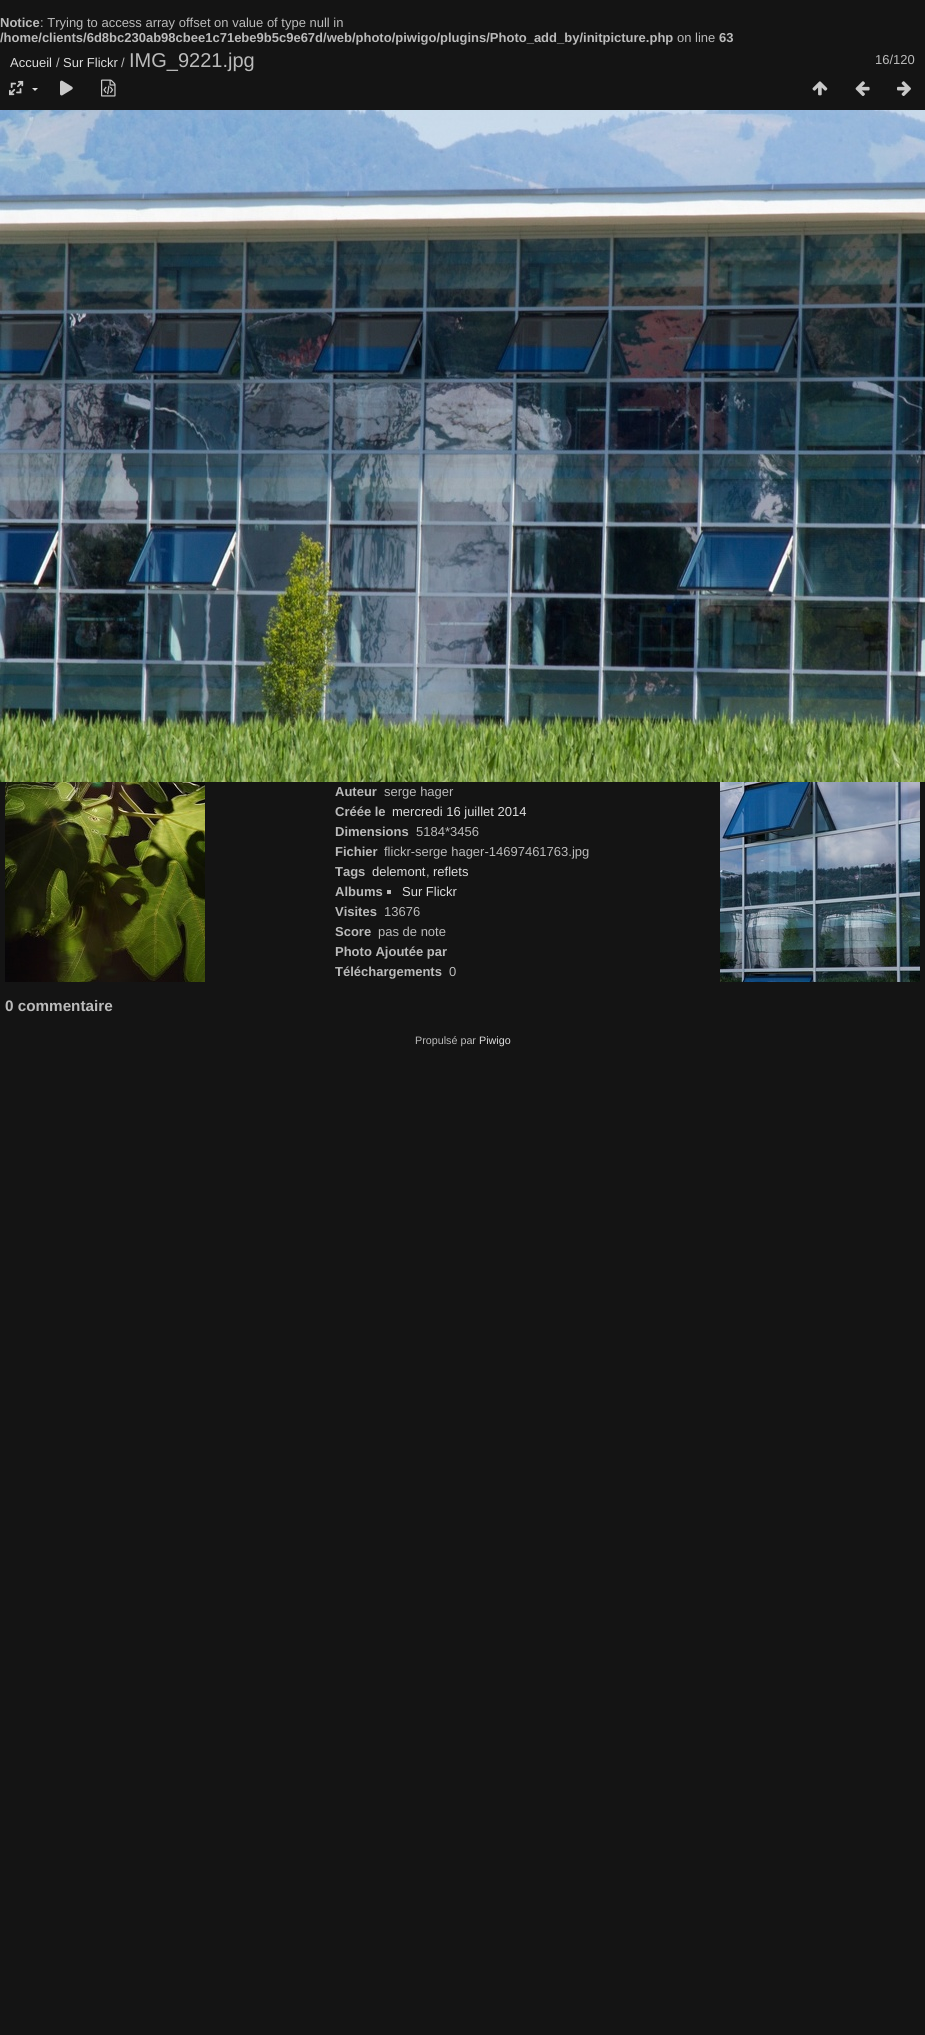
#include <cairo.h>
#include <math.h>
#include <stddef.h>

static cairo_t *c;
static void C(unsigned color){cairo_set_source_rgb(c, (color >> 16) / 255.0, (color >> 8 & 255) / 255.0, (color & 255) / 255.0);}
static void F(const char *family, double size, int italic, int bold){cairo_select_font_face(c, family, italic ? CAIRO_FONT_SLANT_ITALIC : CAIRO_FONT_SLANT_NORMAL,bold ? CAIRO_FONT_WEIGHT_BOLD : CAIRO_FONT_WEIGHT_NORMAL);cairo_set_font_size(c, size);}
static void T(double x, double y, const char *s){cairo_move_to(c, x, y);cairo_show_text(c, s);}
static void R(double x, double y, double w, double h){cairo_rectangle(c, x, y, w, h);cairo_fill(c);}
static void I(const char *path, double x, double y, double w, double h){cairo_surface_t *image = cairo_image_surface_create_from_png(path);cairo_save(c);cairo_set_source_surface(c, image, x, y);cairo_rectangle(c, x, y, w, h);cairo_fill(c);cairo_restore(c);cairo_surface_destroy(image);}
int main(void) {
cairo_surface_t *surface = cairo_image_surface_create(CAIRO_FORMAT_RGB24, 925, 2035);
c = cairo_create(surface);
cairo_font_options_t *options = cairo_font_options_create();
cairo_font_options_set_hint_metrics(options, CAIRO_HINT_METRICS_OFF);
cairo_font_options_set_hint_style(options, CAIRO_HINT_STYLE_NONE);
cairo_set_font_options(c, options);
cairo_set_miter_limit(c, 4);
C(0x141414);
cairo_paint(c);
F("Liberation Sans",13,0,1);
C(0xbbbbbb);
T(0,27,"Notice");
F("Liberation Sans",13,0,0);
T(40,27,": Trying to access array offset on value of type null in");
F("Liberation Sans",13,0,1);
T(0,42,"/home/clients/6d8bc230ab98cbee1c71ebe9b5c9e67d/web/photo/piwigo/plugins/Photo_add_by/initpicture.php");
F("Liberation Sans",13,0,0);
T(677,42,"on line");
F("Liberation Sans",13,0,1);
T(719,42,"63");
F("Liberation Sans",13,0,0);
C(0xdddddd);
T(10,67,"Accueil");
C(0xbbbbbb);
T(56,67,"/");
C(0xdddddd);
T(63,67,"Sur Flickr");
C(0xbbbbbb);
T(121,67,"/");
F("Liberation Sans",20,0,0);
T(129,67,"IMG_9221.jpg");
F("Liberation Sans",13,0,0);
T(875,64,"16/120");
I("1.png",9,80,15,16);
C(0xdddddd);
cairo_new_path(c);
cairo_move_to(c,32,88);
cairo_line_to(c,38,88);
cairo_line_to(c,35,91);
cairo_close_path(c);
cairo_fill(c);
I("2.png",60,80,13,16);
I("3.png",101,79,15,18);
I("4.png",812,81,16,15);
I("5.png",855,81,15,15);
I("6.png",897,81,14,15);
I("7.png",0,110,925,672);
I("8.png",5,782,200,200);
I("9.png",720,782,200,200);
F("Liberation Sans",13,0,1);
C(0xbbbbbb);
T(335,796,"Auteur");
F("Liberation Sans",13,0,0);
T(384,796,"serge hager");
F("Liberation Sans",13,0,1);
T(335,816,"Créée le");
F("Liberation Sans",13,0,0);
C(0xdddddd);
T(392,816,"mercredi 16 juillet 2014");
F("Liberation Sans",13,0,1);
C(0xbbbbbb);
T(335,836,"Dimensions");
F("Liberation Sans",13,0,0);
T(416,836,"5184*3456");
F("Liberation Sans",13,0,1);
T(335,856,"Fichier");
F("Liberation Sans",13,0,0);
T(384,856,"flickr-serge hager-14697461763.jpg");
F("Liberation Sans",13,0,1);
T(335,876,"Tags");
F("Liberation Sans",13,0,0);
C(0xdddddd);
T(372,876,"delemont");
C(0xbbbbbb);
T(426,876,",");
C(0xdddddd);
T(433,876,"reflets");
F("Liberation Sans",13,0,1);
C(0xbbbbbb);
T(335,896,"Albums");
R(387,890,4,4);
F("Liberation Sans",13,0,0);
C(0xdddddd);
T(402,896,"Sur Flickr");
F("Liberation Sans",13,0,1);
C(0xbbbbbb);
T(335,916,"Visites");
F("Liberation Sans",13,0,0);
T(384,916,"13676");
F("Liberation Sans",13,0,1);
T(335,936,"Score");
F("Liberation Sans",13,0,0);
T(378,936,"pas de note");
F("Liberation Sans",13,0,1);
T(335,956,"Photo Ajoutée par");
T(335,976,"Téléchargements");
F("Liberation Sans",13,0,0);
T(449,976,"0");
F("Liberation Sans",15.25,0,1);
T(5,1011,"0 commentaire");
F("Liberation Sans",10.75,0,0);
T(415,1044,"Propulsé par");
C(0xdddddd);
T(479,1044,"Piwigo");
cairo_surface_write_to_png(surface, "o.png");
cairo_font_options_destroy(options);
cairo_destroy(c);
cairo_surface_destroy(surface);
return 0;
}
